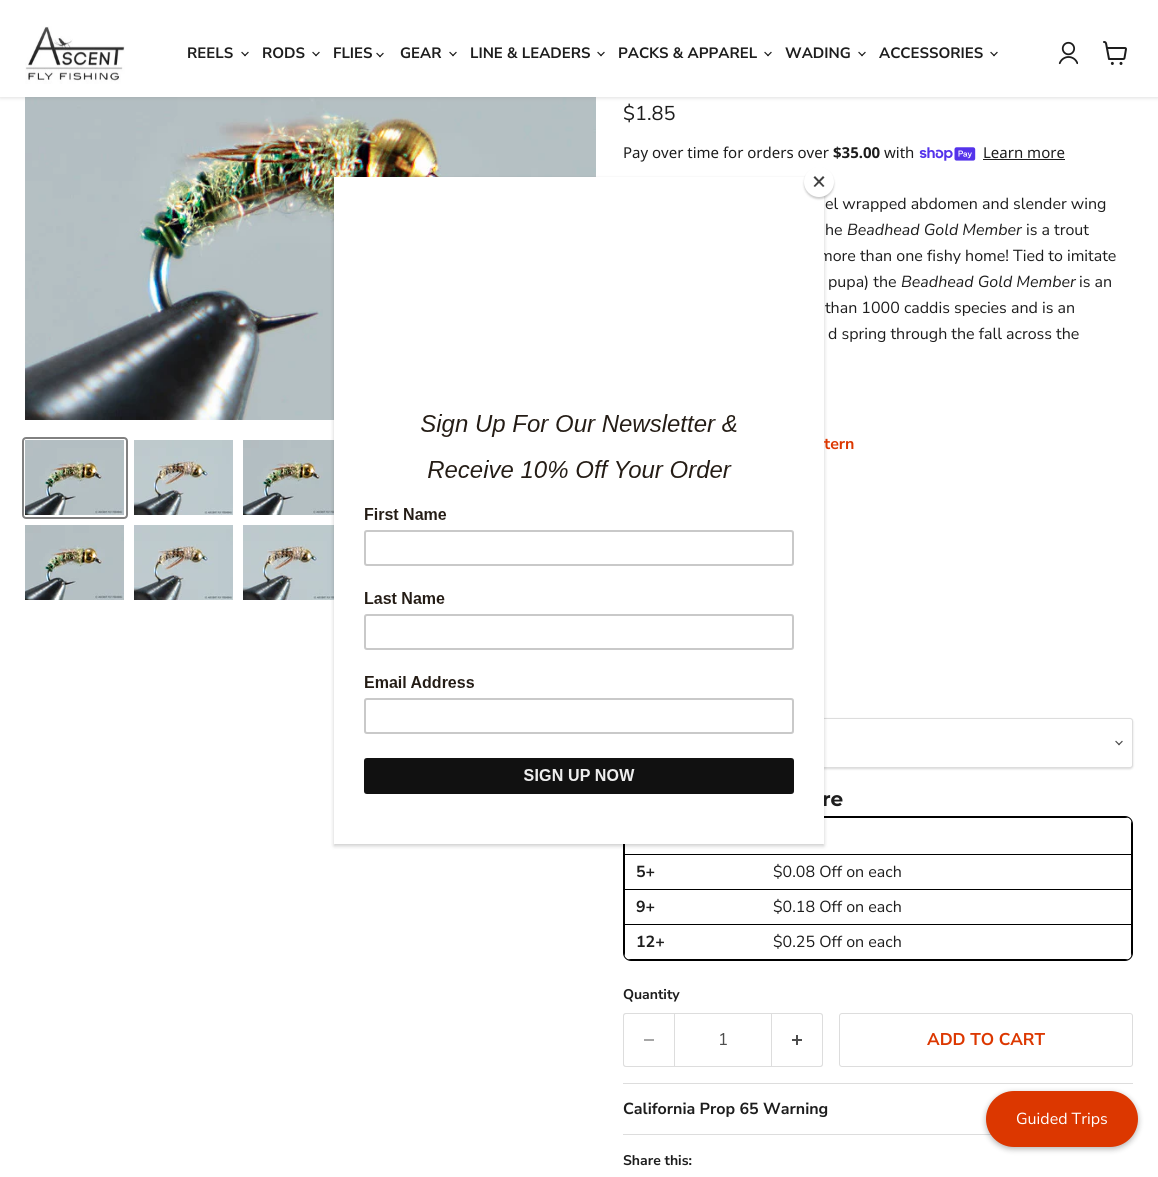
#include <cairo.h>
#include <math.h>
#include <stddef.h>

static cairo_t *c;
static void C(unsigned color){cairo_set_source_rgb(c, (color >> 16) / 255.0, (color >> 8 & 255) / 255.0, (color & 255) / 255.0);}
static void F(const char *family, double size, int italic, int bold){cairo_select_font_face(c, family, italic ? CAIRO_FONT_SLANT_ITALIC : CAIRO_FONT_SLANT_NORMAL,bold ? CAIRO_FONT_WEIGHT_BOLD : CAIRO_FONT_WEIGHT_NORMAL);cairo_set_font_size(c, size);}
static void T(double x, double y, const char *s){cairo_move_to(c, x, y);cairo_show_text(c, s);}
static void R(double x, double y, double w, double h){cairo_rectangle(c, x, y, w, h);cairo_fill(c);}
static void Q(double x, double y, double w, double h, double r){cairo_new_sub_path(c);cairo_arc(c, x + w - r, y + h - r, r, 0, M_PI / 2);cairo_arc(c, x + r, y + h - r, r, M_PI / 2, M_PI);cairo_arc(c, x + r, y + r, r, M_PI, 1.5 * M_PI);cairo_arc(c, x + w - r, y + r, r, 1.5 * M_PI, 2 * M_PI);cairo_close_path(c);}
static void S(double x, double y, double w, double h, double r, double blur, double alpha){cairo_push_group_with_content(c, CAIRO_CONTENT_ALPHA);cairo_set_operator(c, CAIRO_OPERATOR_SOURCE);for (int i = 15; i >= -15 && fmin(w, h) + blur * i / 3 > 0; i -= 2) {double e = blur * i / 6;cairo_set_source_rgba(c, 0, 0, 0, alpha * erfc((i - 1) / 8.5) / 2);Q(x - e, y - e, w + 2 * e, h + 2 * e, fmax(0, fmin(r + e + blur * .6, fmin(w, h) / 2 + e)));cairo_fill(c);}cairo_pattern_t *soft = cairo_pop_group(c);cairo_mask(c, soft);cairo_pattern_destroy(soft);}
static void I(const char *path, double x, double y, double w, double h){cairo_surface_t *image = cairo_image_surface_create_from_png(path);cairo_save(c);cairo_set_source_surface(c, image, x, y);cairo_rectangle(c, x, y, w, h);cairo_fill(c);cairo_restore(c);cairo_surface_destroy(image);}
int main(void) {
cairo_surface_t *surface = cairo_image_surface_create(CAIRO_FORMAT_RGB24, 1158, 1177);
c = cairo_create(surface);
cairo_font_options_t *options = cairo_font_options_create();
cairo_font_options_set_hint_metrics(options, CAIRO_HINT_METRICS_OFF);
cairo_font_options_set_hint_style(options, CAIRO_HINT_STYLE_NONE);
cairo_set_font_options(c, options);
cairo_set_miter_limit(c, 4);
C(0xffffff);
cairo_paint(c);
I("6.png",25,97,571,323);
C(0x808080);
S(0,1,1158,97,0,2,.25);
C(0xffffff);
R(0,0,1158,97);
I("1.png",25,26,100,58);
F("Nunito Sans",15,0,1);
C(0x1d1d1d);
T(187,58,"REELS");
I("2.png",241,51,8,6);
T(262,58,"RODS");
I("2.png",312,51,8,6);
T(333,58,"FLIES");
I("2.png",376,52,8,6);
T(400,58,"GEAR");
I("2.png",449,51,8,6);
T(470,58,"LINE & LEADERS");
I("2.png",597,51,8,6);
T(618,58,"PACKS & APPAREL");
I("2.png",764,51,8,6);
T(785,58,"WADING");
I("2.png",858,51,8,6);
T(879,58,"ACCESSORIES");
I("2.png",990,51,8,6);
I("3.png",1058,41,20,24);
I("4.png",1103,41,24,24);
I("9.png",243,440,91,75);
I("12.png",243,525,91,75);
C(0x000000);
S(623,719,510,50,3,1,.15);
C(0xffffff);
Q(623.5,718.5,509,49,2.5);
cairo_fill_preserve(c);
C(0xdddddd);
cairo_set_line_width(c,1);
cairo_stroke(c);
Q(623.5,816.5,509,144,7.5);
C(0x000000);
cairo_stroke(c);
cairo_save(c);
Q(624,817,508,143,7);
cairo_clip(c);
R(824,817,308,1);
cairo_restore(c);
R(624,854,508,1);
R(624,889,508,1);
R(624,924,508,1);
cairo_save(c);
Q(624,817,508,143,7);
cairo_clip(c);
R(1131,924,1,36);
R(624,959,508,1);
R(624,924,1,36);
cairo_restore(c);
R(624,889,1,36);
R(624,844,1,46);
C(0x000000);
S(334,179,490,667,0,2,.2);
F("Nunito Sans",16,0,0);
C(0x1d1d1d);
T(819,261,"more than one fishy home! Tied to imitate");
F("Montserrat",20,0,1);
T(822,806,"re");
I("5.png",334,177,490,667);
C(0x000000);
S(804,169,30,30,15,1,.2);
C(0xffffff);
cairo_arc(c,819,182,15,0,2 * M_PI);
cairo_fill(c);
C(0x414141);
cairo_new_path(c);
cairo_move_to(c,823,176);
cairo_line_to(c,824.5,177.5);
cairo_line_to(c,815,187);
cairo_line_to(c,813.5,186);
cairo_close_path(c);
cairo_fill(c);
cairo_new_path(c);
cairo_move_to(c,813.5,177.5);
cairo_line_to(c,815,176);
cairo_line_to(c,824.5,186);
cairo_line_to(c,823,187);
cairo_close_path(c);
cairo_fill(c);
Q(23,438,104,80,3);
C(0x818181);
cairo_set_line_width(c,2);
cairo_stroke(c);
I("7.png",25,440,99,75);
I("8.png",134,440,99,75);
I("10.png",25,525,99,75);
I("11.png",134,525,99,75);
F("Nunito Sans",20,0,0);
C(0x1d1d1d);
T(623,120,"$1.85");
F("Noto Sans",15,0,0);
T(623,158,"Pay over time for orders over");
F("Noto Sans",15,0,1);
T(833,158,"$35.00");
F("Noto Sans",15,0,0);
T(884,158,"with");
I("13.png",919,147,57,14);
T(983,158,"Learn more");
R(983,159,82,1);
F("Nunito Sans",16,0,0);
T(825,209,"el wrapped abdomen and slender wing");
T(825,235,"he");
F("Nunito Sans",16,1,0);
T(847,235,"Beadhead Gold Member");
F("Nunito Sans",16,0,0);
T(1026,235,"is a trout");
T(828,287,"pupa) the");
F("Nunito Sans",16,1,0);
T(901,287,"Beadhead Gold Member");
F("Nunito Sans",16,0,0);
T(1079,287,"is an");
T(825,313,"than 1000 caddis species and is an");
T(828,339,"d spring through the fall across the");
F("Nunito Sans",16,0,1);
C(0xdc3700);
T(824,449,"tern");
I("14.png",1115,740,8,6);
C(0x000000);
R(1131,889,1,36);
R(1131,854,1,36);
cairo_save(c);
Q(624,817,508,143,7);
cairo_clip(c);
R(1131,817,1,38);
cairo_restore(c);
C(0x1d1d1d);
T(636,877,"5+");
F("Nunito Sans",16,0,0);
T(773,877,"$0.08 Off on each");
F("Nunito Sans",16,0,1);
T(636,912,"9+");
F("Nunito Sans",16,0,0);
T(773,912,"$0.18 Off on each");
F("Nunito Sans",16,0,1);
T(636,947,"12+");
F("Nunito Sans",16,0,0);
T(773,947,"$0.25 Off on each");
F("Nunito Sans",14,0,1);
T(623,999,"Quantity");
C(0xdddddd);
cairo_set_fill_rule(c,CAIRO_FILL_RULE_EVEN_ODD);
cairo_new_path(c);
cairo_move_to(c,626,1013);
cairo_line_to(c,674,1013);
cairo_line_to(c,674,1067);
cairo_line_to(c,626,1067);
cairo_curve_to(c,624,1067,623,1066,623,1064);
cairo_line_to(c,623,1016);
cairo_curve_to(c,623,1014,624,1013,626,1013);
cairo_close_path(c);
cairo_move_to(c,626,1014);
cairo_line_to(c,674,1014);
cairo_line_to(c,674,1066);
cairo_line_to(c,626,1066);
cairo_curve_to(c,625,1066,624,1065,624,1064);
cairo_line_to(c,624,1016);
cairo_curve_to(c,624,1015,625,1014,626,1014);
cairo_close_path(c);
cairo_fill(c);
C(0xa6a6a6);
R(644,1039,10,2);
cairo_rectangle(c,674.5,1013.5,97,53);
C(0xdddddd);
cairo_set_line_width(c,1);
cairo_stroke(c);
F("Nunito Sans",17,0,0);
C(0x4d4d4d);
T(718,1045,"1");
C(0xdddddd);
cairo_new_path(c);
cairo_move_to(c,772,1013);
cairo_line_to(c,820,1013);
cairo_curve_to(c,822,1013,823,1014,823,1016);
cairo_line_to(c,823,1064);
cairo_curve_to(c,823,1066,822,1067,820,1067);
cairo_line_to(c,772,1067);
cairo_close_path(c);
cairo_move_to(c,772,1014);
cairo_line_to(c,820,1014);
cairo_curve_to(c,821,1014,822,1015,822,1016);
cairo_line_to(c,822,1064);
cairo_curve_to(c,822,1065,821,1066,820,1066);
cairo_line_to(c,772,1066);
cairo_close_path(c);
cairo_fill(c);
I("15.png",792,1035,10,10);
Q(839.5,1013.5,293,53,2.5);
cairo_stroke(c);
F("Nunito Sans",17,0,1);
C(0xdc3700);
T(927,1045,"ADD TO CART");
C(0xdddddd);
R(623,1083,510,1);
R(623,1134,368,1);
F("Nunito Sans",16,0,1);
C(0x1d1d1d);
T(623,1114,"California Prop 65 Warning");
F("Nunito Sans",14,0,1);
T(623,1165,"Share this:");
C(0x000000);
S(986,1093,152,56,28,3,.3);
C(0xdc3700);
Q(986,1091,152,56,28);
cairo_fill(c);
F("Nunito Sans",16,0,0);
C(0xffffff);
T(1016,1124,"Guided Trips");
cairo_surface_write_to_png(surface, "o.png");
cairo_font_options_destroy(options);
cairo_destroy(c);
cairo_surface_destroy(surface);
return 0;
}
